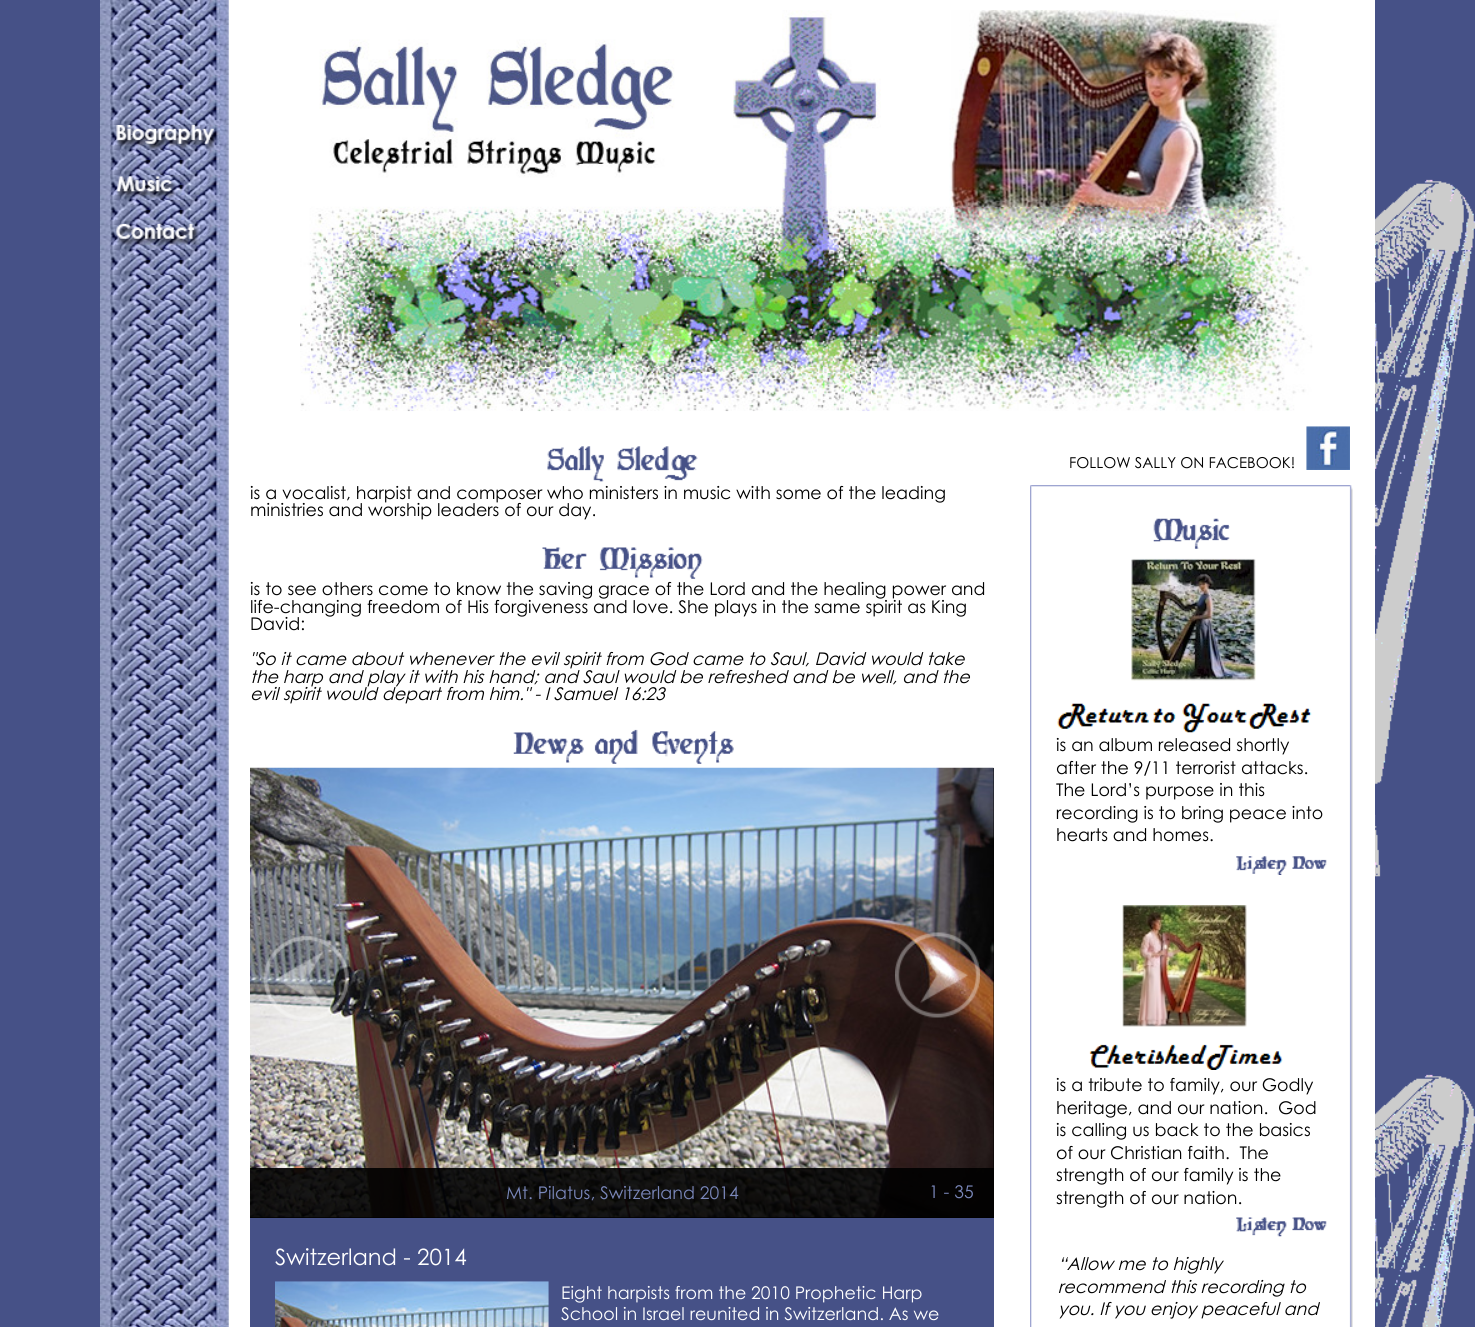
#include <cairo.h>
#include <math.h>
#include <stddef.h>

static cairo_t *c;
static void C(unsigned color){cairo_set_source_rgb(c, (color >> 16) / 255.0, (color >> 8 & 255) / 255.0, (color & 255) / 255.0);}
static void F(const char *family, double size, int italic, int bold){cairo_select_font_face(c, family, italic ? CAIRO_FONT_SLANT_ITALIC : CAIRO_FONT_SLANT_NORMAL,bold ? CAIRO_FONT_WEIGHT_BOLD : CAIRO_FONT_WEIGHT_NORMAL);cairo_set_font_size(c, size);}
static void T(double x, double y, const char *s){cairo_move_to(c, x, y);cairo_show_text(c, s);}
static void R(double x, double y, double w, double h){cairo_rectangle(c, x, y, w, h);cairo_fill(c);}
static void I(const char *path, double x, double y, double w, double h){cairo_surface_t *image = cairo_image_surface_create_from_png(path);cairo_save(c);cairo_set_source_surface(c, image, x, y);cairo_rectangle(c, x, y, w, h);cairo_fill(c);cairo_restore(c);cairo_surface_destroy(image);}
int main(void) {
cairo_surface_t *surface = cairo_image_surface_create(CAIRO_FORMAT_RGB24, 1475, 1327);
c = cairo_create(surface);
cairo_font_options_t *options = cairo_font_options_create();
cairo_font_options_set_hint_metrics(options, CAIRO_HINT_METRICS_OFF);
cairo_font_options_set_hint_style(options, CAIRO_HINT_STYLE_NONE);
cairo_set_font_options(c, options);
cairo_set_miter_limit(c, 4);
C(0x465187);
cairo_paint(c);
I("1.png",1375,179,100,1148);
C(0xffffff);
R(228,0,1147,1327);
I("2.png",100,0,129,1327);
I("3.png",115,125,104,26);
I("4.png",116,176,61,23);
I("5.png",115,223,85,23);
I("6.png",300,10,1013,402);
I("7.png",547,446,151,36);
F("Century Gothic",15,0,0);
C(0x000000);
T(1069,468,"FOLLOW SALLY ON FACEBOOK!");
I("8.png",1306,426,44,44);
F("Century Gothic",17.5,0,0);
T(250,499,"is a vocalist, harpist and composer who ministers in music with some of the leading");
T(250,516,"ministries and worship leaders of our day.");
I("9.png",542,547,161,32);
T(250,595,"is to see others come to know the saving grace of the Lord and the healing power and");
T(250,613,"life-changing freedom of His forgiveness and love. She plays in the same spirit as King");
T(250,630,"David:");
F("Century Gothic",17.5,1,0);
T(250,665,"\"So it came about whenever the evil spirit from God came to Saul, David would take");
T(250,683,"the harp and play it with his hand; and Saul would be refreshed and be well, and the");
T(250,700,"evil spirit would depart from him.\" - I Samuel 16:23");
I("10.png",513,729,221,35);
R(250,768,744,450);
I("11.png",250,767,744,451);
I("12.png",263,936,86,85);
I("13.png",895,932,85,86);
cairo_set_source_rgba(c,0,0,0,0.9);
R(250,1168,744,50);
F("Century Gothic",17.5,0,0);
C(0x7a87ba);
T(506,1199,"Mt. Pilatus, Switzerland 2014");
T(929,1198,"1 - 35");
C(0x465187);
R(250,1218,744,109);
F("Century Gothic",22.5,0,0);
C(0xffffff);
T(275,1265,"Switzerland - 2014");
I("14.png",275,1281,274,46);
F("Century Gothic",17.5,0,0);
T(561,1299,"Eight harpists from the 2010 Prophetic Harp");
T(561,1320,"School in Israel reunited in Switzerland. As we");
I("15.png",1030,485,323,842);
I("16.png",1153,518,77,31);
I("17.png",1131,558,125,123);
I("18.png",1057,703,255,30);
C(0x000000);
T(1056,751,"is an album released shortly");
T(1056,774,"after the 9/11 terrorist attacks.");
T(1056,796,"The Lord’s purpose in this");
T(1056,819,"recording is to bring peace into");
T(1056,841,"hearts and homes.");
I("19.png",1236,856,91,19);
I("20.png",1122,905,125,122);
I("21.png",1089,1044,194,26);
T(1056,1091,"is a tribute to family, our Godly");
T(1056,1114,"heritage, and our nation.  God");
T(1056,1136,"is calling us back to the basics");
T(1056,1159,"of our Christian faith.  The");
T(1056,1181,"strength of our family is the");
T(1056,1204,"strength of our nation.");
I("22.png",1236,1217,91,20);
F("Century Gothic",17.5,1,0);
T(1058,1270,"“Allow me to highly");
T(1058,1293,"recommend this recording to");
T(1058,1315,"you. If you enjoy peaceful and");
cairo_surface_write_to_png(surface, "o.png");
cairo_font_options_destroy(options);
cairo_destroy(c);
cairo_surface_destroy(surface);
return 0;
}
